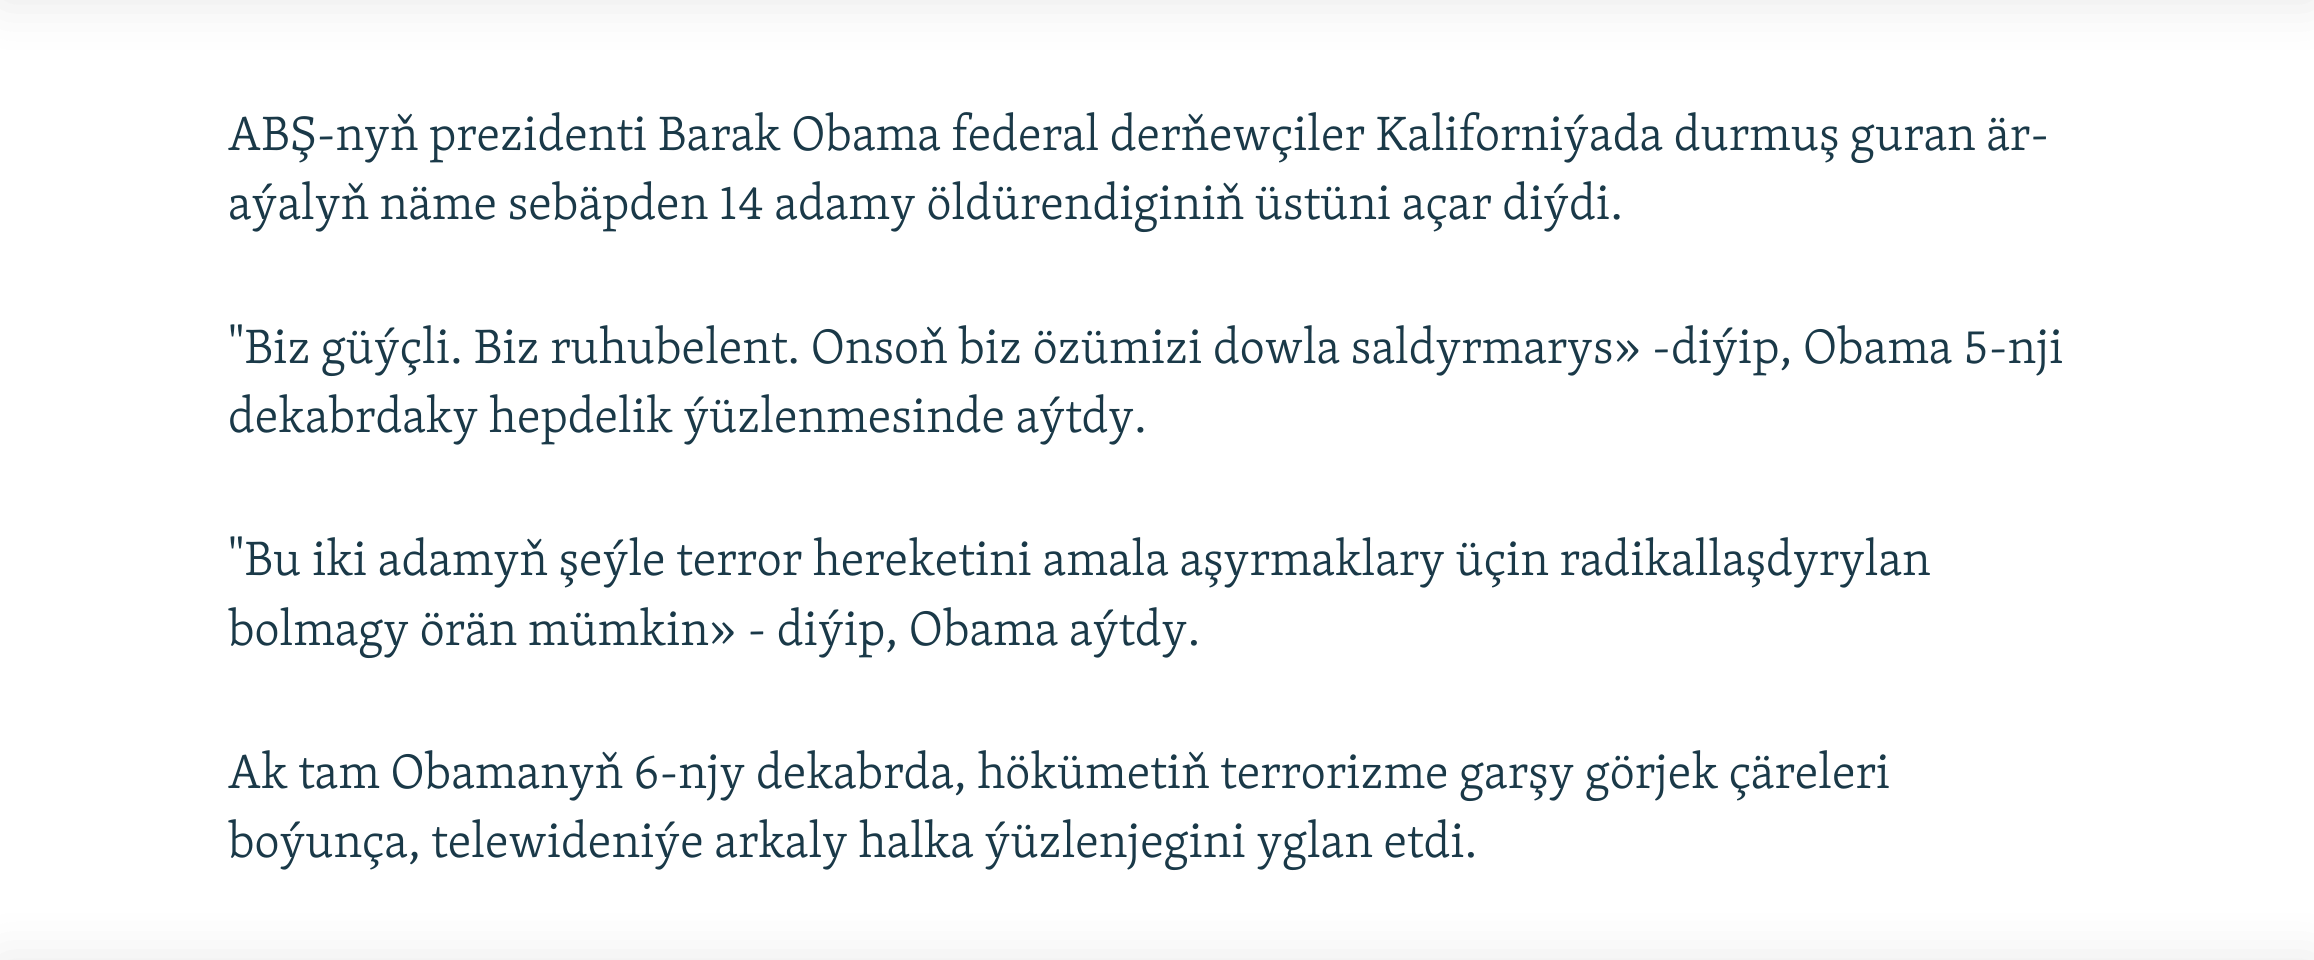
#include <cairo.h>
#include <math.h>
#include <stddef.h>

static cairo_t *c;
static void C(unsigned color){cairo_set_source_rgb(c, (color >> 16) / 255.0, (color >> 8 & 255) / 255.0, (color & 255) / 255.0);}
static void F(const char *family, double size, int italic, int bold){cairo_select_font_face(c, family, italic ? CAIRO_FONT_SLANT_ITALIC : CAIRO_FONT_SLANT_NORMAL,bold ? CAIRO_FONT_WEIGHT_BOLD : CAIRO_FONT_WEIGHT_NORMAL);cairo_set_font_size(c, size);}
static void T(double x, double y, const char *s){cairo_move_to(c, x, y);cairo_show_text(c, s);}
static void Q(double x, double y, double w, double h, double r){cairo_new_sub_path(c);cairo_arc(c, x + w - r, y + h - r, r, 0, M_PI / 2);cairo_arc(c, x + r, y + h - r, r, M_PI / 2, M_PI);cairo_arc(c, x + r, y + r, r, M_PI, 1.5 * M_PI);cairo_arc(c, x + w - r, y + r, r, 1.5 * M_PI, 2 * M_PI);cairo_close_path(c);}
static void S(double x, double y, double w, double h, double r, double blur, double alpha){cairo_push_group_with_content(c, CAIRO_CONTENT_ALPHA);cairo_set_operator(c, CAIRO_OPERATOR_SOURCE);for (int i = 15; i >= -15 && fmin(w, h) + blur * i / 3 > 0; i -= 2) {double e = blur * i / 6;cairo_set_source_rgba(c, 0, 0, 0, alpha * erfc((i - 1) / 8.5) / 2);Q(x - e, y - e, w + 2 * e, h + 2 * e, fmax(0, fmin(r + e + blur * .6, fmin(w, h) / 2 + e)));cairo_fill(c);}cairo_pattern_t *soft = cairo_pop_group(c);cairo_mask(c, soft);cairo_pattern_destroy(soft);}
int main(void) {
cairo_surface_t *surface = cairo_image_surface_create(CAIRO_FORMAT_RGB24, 2314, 960);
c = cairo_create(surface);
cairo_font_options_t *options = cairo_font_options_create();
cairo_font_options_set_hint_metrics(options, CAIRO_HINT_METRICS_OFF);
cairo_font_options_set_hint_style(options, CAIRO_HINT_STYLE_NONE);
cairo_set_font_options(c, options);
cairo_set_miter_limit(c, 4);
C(0xffffff);
cairo_paint(c);
C(0x000000);
S(0,-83,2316,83,0,27.5,.1);
S(0,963,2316,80,0,27.5,.1);
F("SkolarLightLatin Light",49.5,0,0);
C(0x1a3948);
T(228,150,"ABŞ-nyň prezidenti Barak Obama federal derňewçiler Kaliforniýada durmuş guran är-");
T(228,219,"aýalyň näme sebäpden 14 adamy öldürendiginiň üstüni açar diýdi.");
T(228,363,"\"Biz güýçli. Biz ruhubelent. Onsoň biz özümizi dowla saldyrmarys» -diýip, Obama 5-nji");
T(228,432,"dekabrdaky hepdelik ýüzlenmesinde aýtdy.");
T(228,575,"\"Bu iki adamyň şeýle terror hereketini amala aşyrmaklary üçin radikallaşdyrylan");
T(228,645,"bolmagy örän mümkin» - diýip, Obama aýtdy.");
T(228,788,"Ak tam Obamanyň 6-njy dekabrda, hökümetiň terrorizme garşy görjek çäreleri");
T(228,857,"boýunça, telewideniýe arkaly halka ýüzlenjegini yglan etdi.");
cairo_surface_write_to_png(surface, "o.png");
cairo_font_options_destroy(options);
cairo_destroy(c);
cairo_surface_destroy(surface);
return 0;
}
